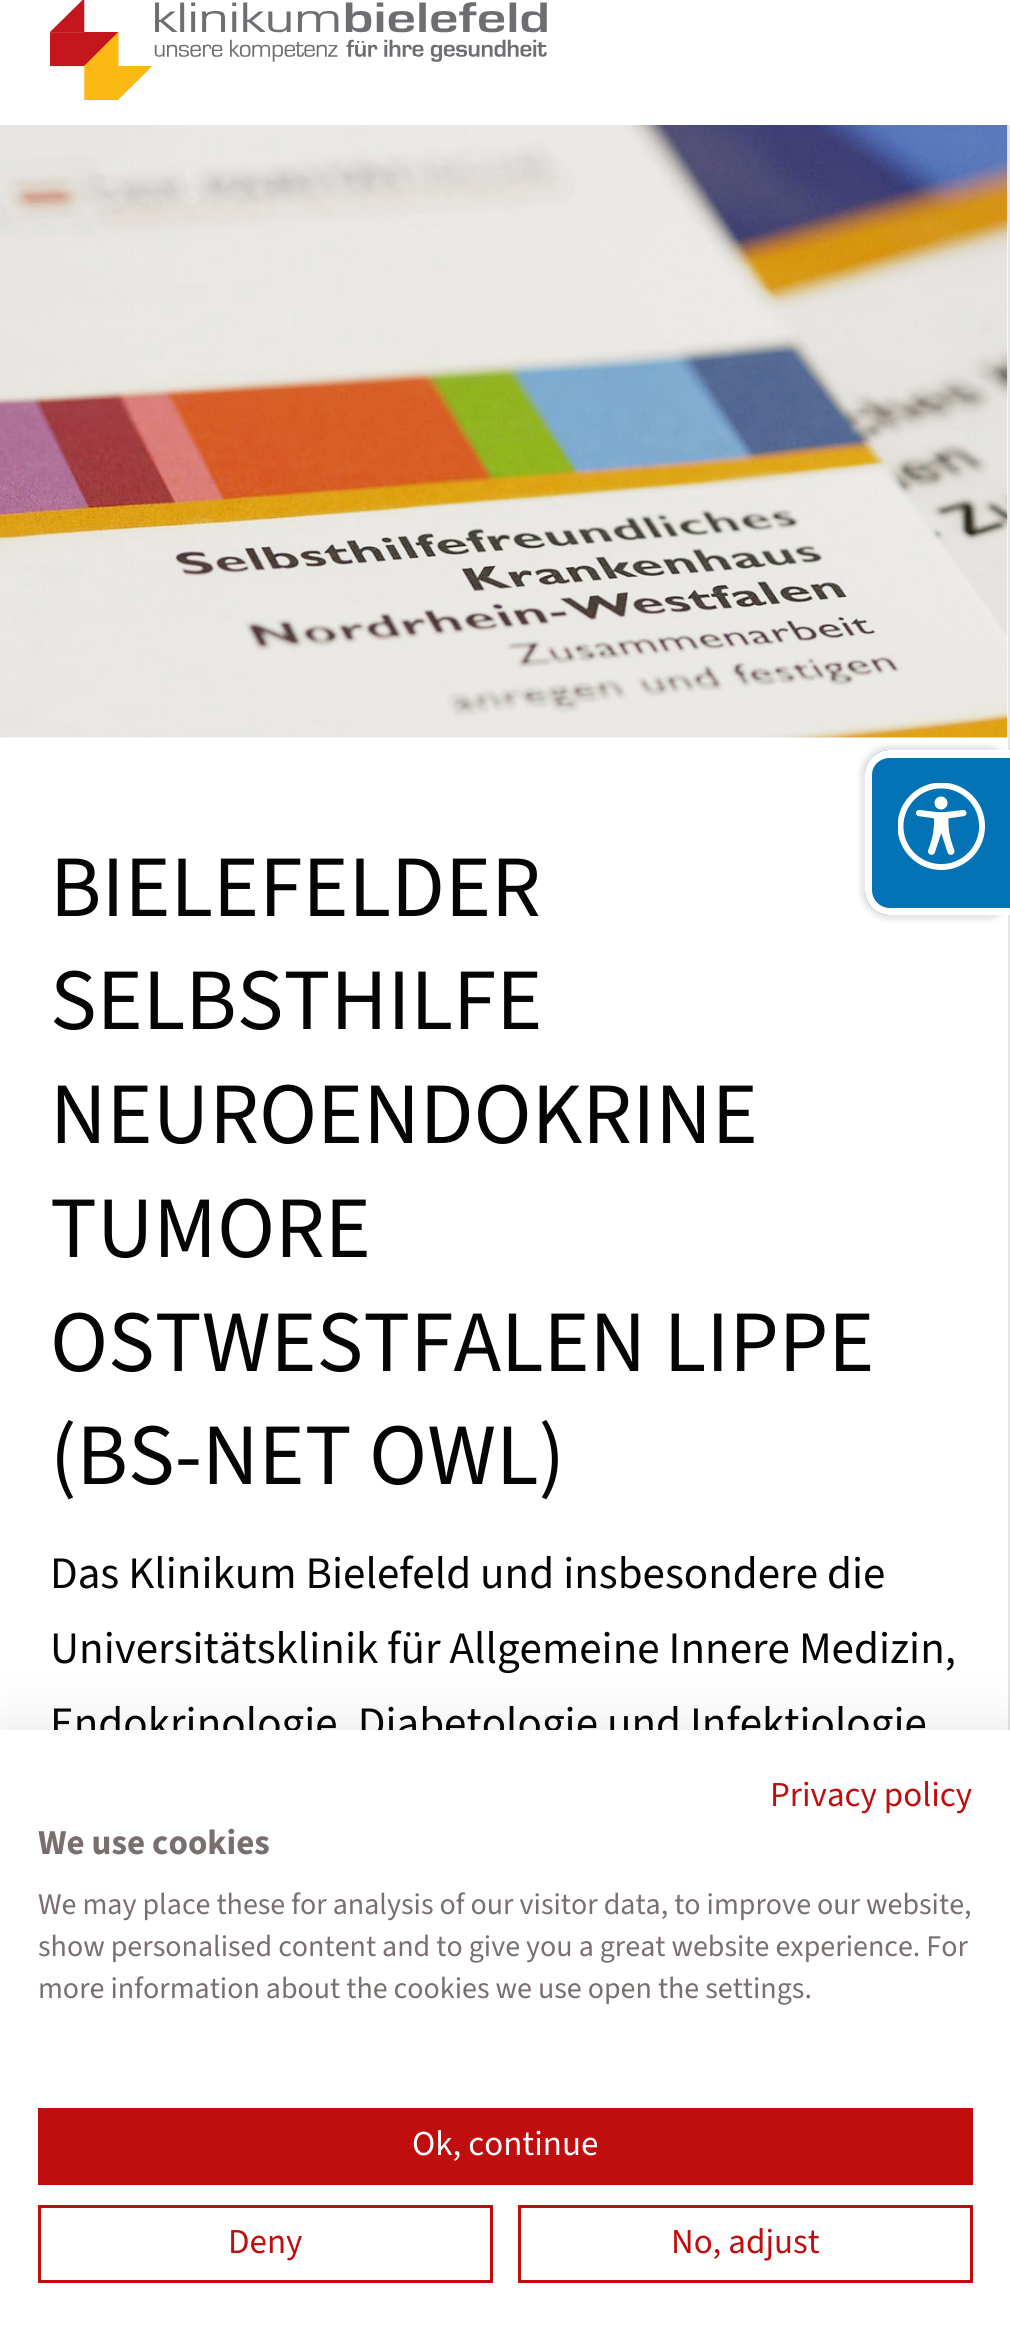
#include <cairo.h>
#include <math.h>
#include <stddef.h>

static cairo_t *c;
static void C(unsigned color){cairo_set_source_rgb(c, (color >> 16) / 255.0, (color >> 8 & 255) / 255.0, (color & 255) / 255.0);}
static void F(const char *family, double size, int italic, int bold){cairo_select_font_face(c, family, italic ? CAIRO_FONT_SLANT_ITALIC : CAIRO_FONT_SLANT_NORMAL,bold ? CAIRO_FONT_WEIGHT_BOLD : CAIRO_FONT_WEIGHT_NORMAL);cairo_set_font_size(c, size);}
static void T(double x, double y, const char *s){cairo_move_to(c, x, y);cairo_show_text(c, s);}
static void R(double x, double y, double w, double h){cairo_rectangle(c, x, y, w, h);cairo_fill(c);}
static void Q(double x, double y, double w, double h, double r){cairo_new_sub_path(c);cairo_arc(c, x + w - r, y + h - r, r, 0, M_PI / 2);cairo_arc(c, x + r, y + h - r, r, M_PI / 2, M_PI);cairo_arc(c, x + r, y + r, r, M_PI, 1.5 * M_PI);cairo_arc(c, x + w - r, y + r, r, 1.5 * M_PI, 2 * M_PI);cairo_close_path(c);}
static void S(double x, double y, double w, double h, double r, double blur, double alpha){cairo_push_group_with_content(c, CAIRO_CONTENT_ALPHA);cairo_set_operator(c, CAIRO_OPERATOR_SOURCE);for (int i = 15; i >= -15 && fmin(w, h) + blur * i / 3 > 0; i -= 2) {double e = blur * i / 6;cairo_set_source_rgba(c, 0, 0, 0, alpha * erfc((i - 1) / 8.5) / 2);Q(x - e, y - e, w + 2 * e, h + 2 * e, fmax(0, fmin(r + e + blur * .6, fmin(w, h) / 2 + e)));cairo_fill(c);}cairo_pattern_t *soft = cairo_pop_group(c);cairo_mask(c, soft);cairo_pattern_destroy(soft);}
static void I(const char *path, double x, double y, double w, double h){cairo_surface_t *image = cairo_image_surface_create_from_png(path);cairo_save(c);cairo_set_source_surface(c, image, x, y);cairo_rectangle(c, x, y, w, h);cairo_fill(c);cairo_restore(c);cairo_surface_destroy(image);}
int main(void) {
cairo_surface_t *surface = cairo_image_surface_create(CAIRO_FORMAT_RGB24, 1010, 2349);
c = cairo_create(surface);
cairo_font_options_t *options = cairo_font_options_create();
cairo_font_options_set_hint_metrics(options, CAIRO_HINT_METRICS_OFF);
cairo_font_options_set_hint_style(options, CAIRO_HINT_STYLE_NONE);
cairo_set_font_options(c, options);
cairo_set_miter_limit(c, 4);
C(0xffffff);
cairo_paint(c);
C(0xe5e5e5);
R(1008,125,2,1605);
I("3.png",0,125,1008,613);
C(0x000000);
S(860,745,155,175,30,2.5,.1);
C(0x0373b6);
cairo_new_path(c);
cairo_move_to(c,890,750);
cairo_line_to(c,1010,750);
cairo_line_to(c,1010,915);
cairo_line_to(c,890,915);
cairo_curve_to(c,876,915,865,904,865,890);
cairo_line_to(c,865,775);
cairo_curve_to(c,865,761,876,750,890,750);
cairo_close_path(c);
cairo_fill(c);
C(0xffffff);
cairo_set_fill_rule(c,CAIRO_FILL_RULE_EVEN_ODD);
cairo_new_path(c);
cairo_move_to(c,890,750);
cairo_line_to(c,1010,750);
cairo_line_to(c,1010,915);
cairo_line_to(c,890,915);
cairo_curve_to(c,876,915,865,904,865,890);
cairo_line_to(c,865,775);
cairo_curve_to(c,865,761,876,750,890,750);
cairo_close_path(c);
cairo_move_to(c,890,758);
cairo_line_to(c,1010,758);
cairo_line_to(c,1010,908);
cairo_line_to(c,890,908);
cairo_curve_to(c,880,908,872,900,872,890);
cairo_line_to(c,872,775);
cairo_curve_to(c,872,765,880,758,890,758);
cairo_close_path(c);
cairo_fill(c);
I("1.png",898,783,87,87);
I("2.png",50,0,497,100);
F("Source Sans 3 ExtraLight",87.5,0,0);
C(0x050505);
T(50,916,"BIELEFELDER");
T(50,1029,"SELBSTHILFE");
T(50,1143,"NEUROENDOKRINE");
T(50,1257,"TUMORE");
T(50,1371,"OSTWESTFALEN LIPPE");
T(50,1484,"(BS-NET OWL)");
F("Source Sans 3 ExtraLight",45,0,0);
T(50,1588,"Das Klinikum Bielefeld und insbesondere die");
T(50,1663,"Universitätsklinik für Allgemeine Innere Medizin,");
T(50,1738,"Endokrinologie, Diabetologie und Infektiologie");
C(0x000000);
S(0,1730,1010,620,0,30,.1);
C(0xffffff);
R(0,1730,1010,619);
F("Source Sans 3 ExtraLight",35,0,0);
C(0xc00d0d);
T(770,1806,"Privacy policy");
F("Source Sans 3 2 ExtraLight",35,0,0);
C(0x7a6f6f);
T(38,1854,"We use cookies");
F("Source Sans 3 ExtraLight",30,0,0);
T(38,1914,"We may place these for analysis of our visitor data, to improve our website,");
T(38,1956,"show personalised content and to give you a great website experience. For");
T(38,1998,"more information about the cookies we use open the settings.");
C(0xc00d0d);
R(38,2108,935,77);
F("Source Sans 3 ExtraLight",35,0,0);
C(0xffffff);
T(412,2155,"Ok, continue");
cairo_rectangle(c,39.5,2206.5,452,75);
C(0xc00d0d);
cairo_set_line_width(c,3);
cairo_stroke(c);
T(228,2253,"Deny");
cairo_rectangle(c,519.5,2206.5,452,75);
cairo_stroke(c);
T(671,2253,"No, adjust");
cairo_surface_write_to_png(surface, "o.png");
cairo_font_options_destroy(options);
cairo_destroy(c);
cairo_surface_destroy(surface);
return 0;
}
